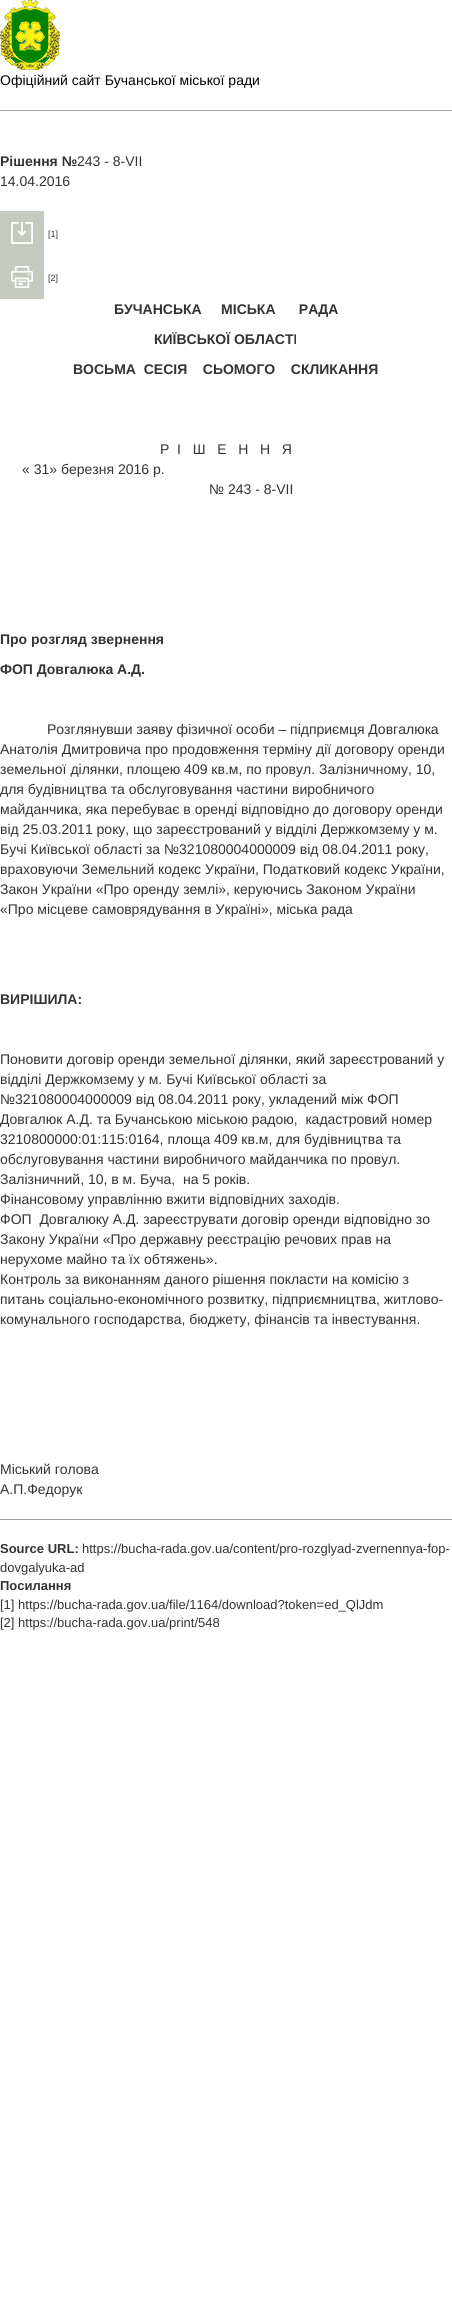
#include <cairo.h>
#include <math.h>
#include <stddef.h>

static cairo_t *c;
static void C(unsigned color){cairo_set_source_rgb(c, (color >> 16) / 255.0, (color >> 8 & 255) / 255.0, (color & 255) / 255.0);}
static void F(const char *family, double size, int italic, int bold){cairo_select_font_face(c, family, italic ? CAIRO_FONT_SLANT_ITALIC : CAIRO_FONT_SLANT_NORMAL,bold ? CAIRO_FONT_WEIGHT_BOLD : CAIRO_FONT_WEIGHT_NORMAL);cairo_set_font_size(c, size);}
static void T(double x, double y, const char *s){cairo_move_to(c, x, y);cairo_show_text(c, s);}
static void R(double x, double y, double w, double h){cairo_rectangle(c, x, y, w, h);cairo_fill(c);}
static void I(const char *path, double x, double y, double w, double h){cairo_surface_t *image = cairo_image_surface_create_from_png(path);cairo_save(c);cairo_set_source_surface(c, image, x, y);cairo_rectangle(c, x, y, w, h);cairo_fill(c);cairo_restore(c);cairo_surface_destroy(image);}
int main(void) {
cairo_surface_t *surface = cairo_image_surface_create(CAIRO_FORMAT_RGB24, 452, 2307);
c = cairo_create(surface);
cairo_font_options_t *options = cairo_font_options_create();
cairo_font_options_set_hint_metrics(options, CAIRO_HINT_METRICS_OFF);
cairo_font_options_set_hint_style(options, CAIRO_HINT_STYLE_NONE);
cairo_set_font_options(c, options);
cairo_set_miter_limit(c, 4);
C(0xffffff);
cairo_paint(c);
I("1.png",0,0,60,70);
F("Liberation Sans",14,0,0);
C(0x000000);
T(0,85,"Офіційний сайт Бучанської міської ради");
C(0x9e9e9e);
R(0,110,452,1);
F("Liberation Sans",14,0,1);
C(0x333333);
T(0,166,"Рішення №");
F("Liberation Sans",14,0,0);
T(77,166,"243 - 8-VІІ");
T(0,186,"14.04.2016");
I("2.png",0,211,44,44);
F("Liberation Sans",9,0,0);
T(48,237,"[1]");
I("3.png",0,255,44,44);
T(48,281,"[2]");
F("Liberation Sans",14,0,1);
T(114,314,"БУЧАНСЬКА     МІСЬКА      РАДА");
T(154,344,"КИЇВСЬКОЇ ОБЛАСТІ");
T(73,374,"ВОСЬМА  СЕСІЯ    СЬОМОГО    СКЛИКАННЯ");
F("Liberation Sans",14,0,0);
T(160,454,"Р  І   Ш   Е   Н   Н   Я");
T(22,474,"« 31» березня 2016 р.");
T(209,494,"№ 243 - 8-VІІ");
F("Liberation Sans",14,0,1);
T(0,644,"Про розгляд звернення");
T(0,674,"ФОП Довгалюка А.Д.");
F("Liberation Sans",14,0,0);
T(47,734,"Розглянувши заяву фізичної особи – підприємця Довгалюка");
T(0,754,"Анатолія Дмитровича про продовження терміну дії договору оренди");
T(0,774,"земельної ділянки, площею 409 кв.м, по провул. Залізничному, 10,");
T(0,794,"для будівництва та обслуговування частини виробничого");
T(0,814,"майданчика, яка перебуває в оренді відповідно до договору оренди");
T(0,834,"від 25.03.2011 року, що зареєстрований у відділі Держкомзему у м.");
T(0,854,"Бучі Київської області за №321080004000009 від 08.04.2011 року,");
T(0,874,"враховуючи Земельний кодекс України, Податковий кодекс України,");
T(0,894,"Закон України «Про оренду землі», керуючись Законом України");
T(0,914,"«Про місцеве самоврядування в Україні», міська рада");
F("Liberation Sans",14,0,1);
T(0,1004,"ВИРІШИЛА:");
F("Liberation Sans",14,0,0);
T(0,1064,"Поновити договір оренди земельної ділянки, який зареєстрований у");
T(0,1084,"відділі Держкомзему у м. Бучі Київської області за");
T(0,1104,"№321080004000009 від 08.04.2011 року, укладений між ФОП");
T(0,1124,"Довгалюк А.Д. та Бучанською міською радою,  кадастровий номер");
T(0,1144,"3210800000:01:115:0164, площа 409 кв.м, для будівництва та");
T(0,1164,"обслуговування частини виробничого майданчика по провул.");
T(0,1184,"Залізничний, 10, в м. Буча,  на 5 років.");
T(0,1204,"Фінансовому управлінню вжити відповідних заходів.");
T(0,1224,"ФОП  Довгалюку А.Д. зареєструвати договір оренди відповідно зо");
T(0,1244,"Закону України «Про державну реєстрацію речових прав на");
T(0,1264,"нерухоме майно та їх обтяжень».");
T(0,1284,"Контроль за виконанням даного рішення покласти на комісію з");
T(0,1304,"питань соціально-економічного розвитку, підприємництва, житлово-");
T(0,1324,"комунального господарства, бюджету, фінансів та інвестування.");
T(0,1474,"Міський голова");
T(0,1494,"А.П.Федорук");
C(0x9e9e9e);
R(0,1519,452,1);
F("Liberation Sans",13,0,1);
C(0x333333);
T(0,1553,"Source URL:");
F("Liberation Sans",13,0,0);
T(82,1553,"https://bucha-rada.gov.ua/content/pro-rozglyad-zvernennya-fop-");
T(0,1572,"dovgalyuka-ad");
F("Liberation Sans",13,0,1);
T(0,1590,"Посилання");
F("Liberation Sans",13,0,0);
T(0,1609,"[1] https://bucha-rada.gov.ua/file/1164/download?token=ed_QlJdm");
T(0,1627,"[2] https://bucha-rada.gov.ua/print/548");
cairo_surface_write_to_png(surface, "o.png");
cairo_font_options_destroy(options);
cairo_destroy(c);
cairo_surface_destroy(surface);
return 0;
}
